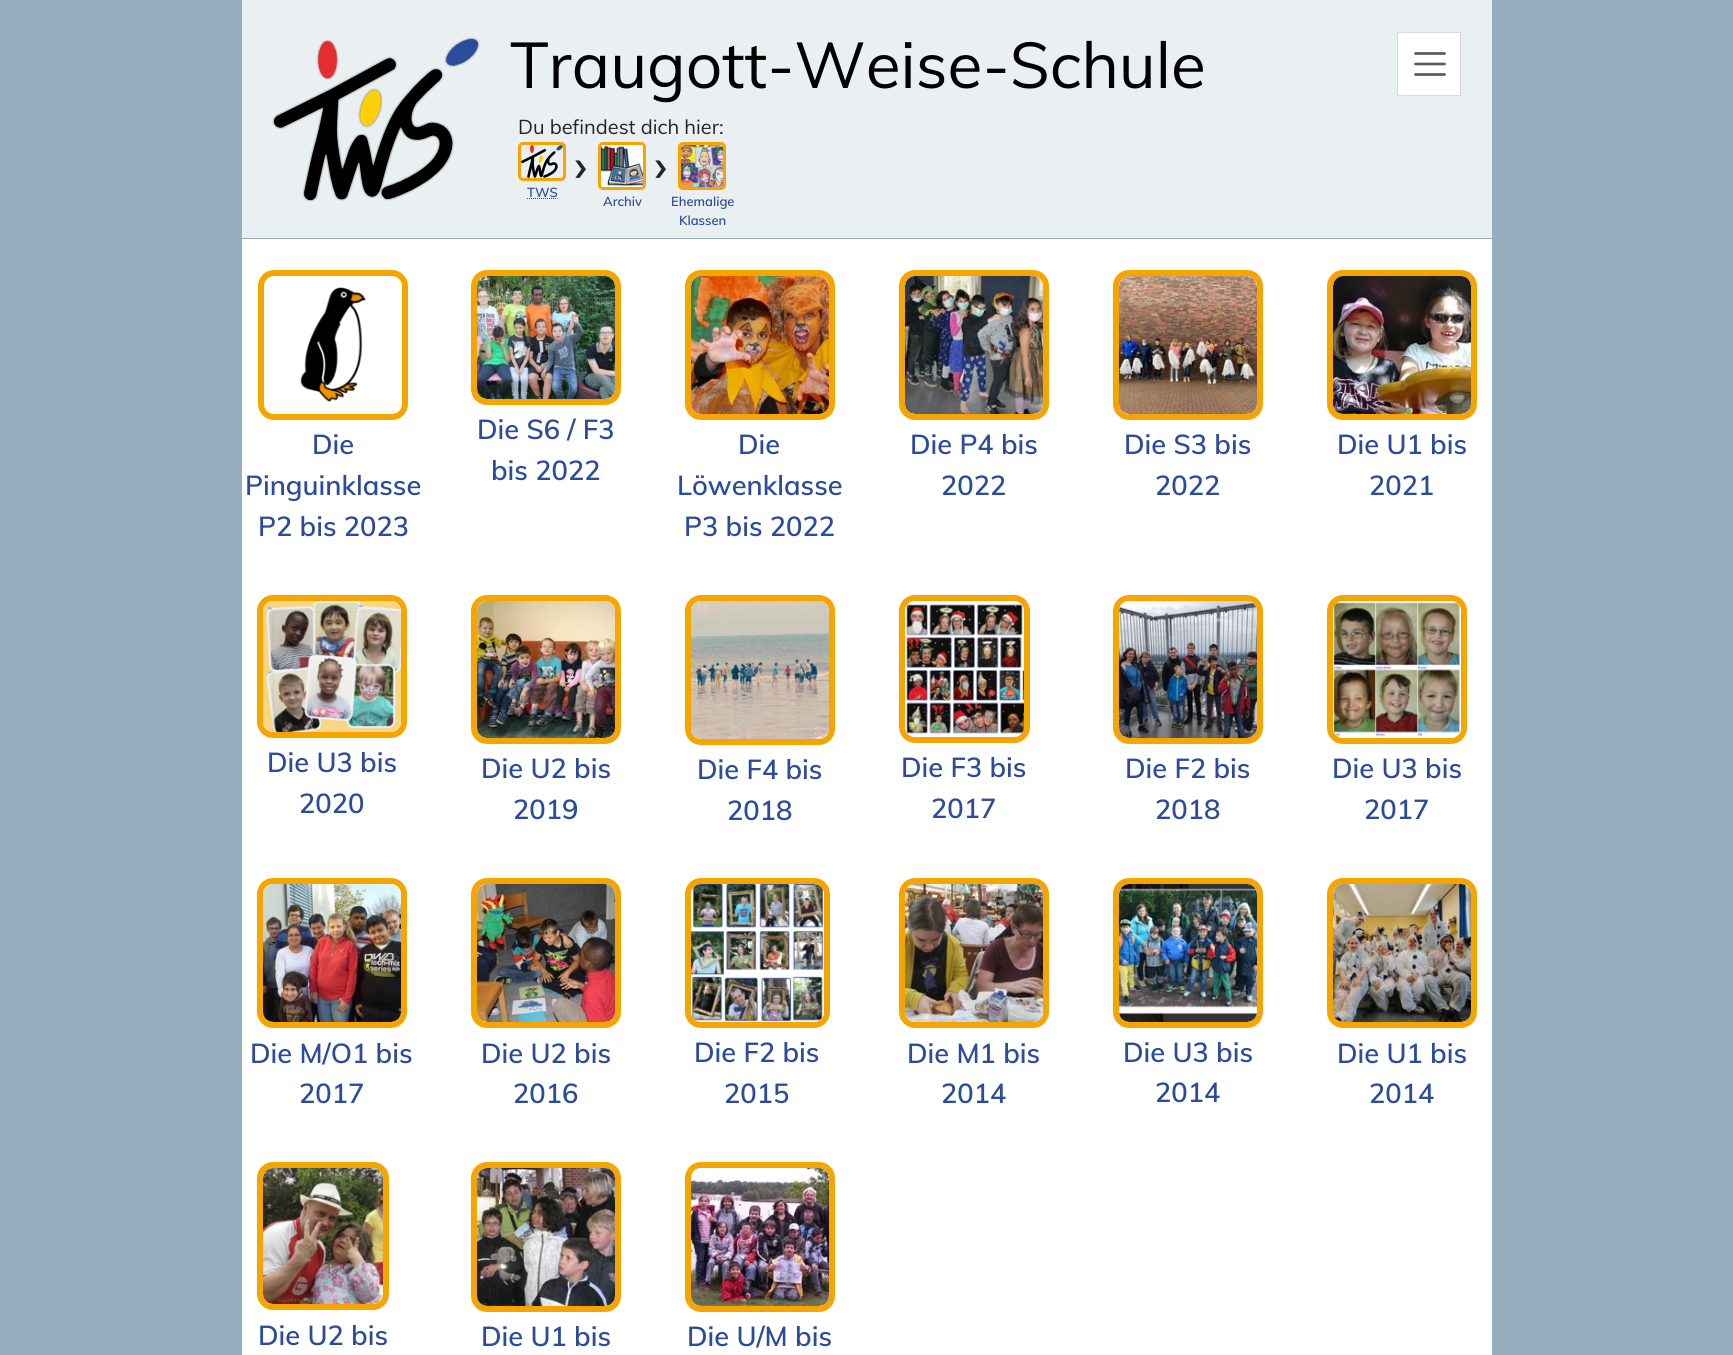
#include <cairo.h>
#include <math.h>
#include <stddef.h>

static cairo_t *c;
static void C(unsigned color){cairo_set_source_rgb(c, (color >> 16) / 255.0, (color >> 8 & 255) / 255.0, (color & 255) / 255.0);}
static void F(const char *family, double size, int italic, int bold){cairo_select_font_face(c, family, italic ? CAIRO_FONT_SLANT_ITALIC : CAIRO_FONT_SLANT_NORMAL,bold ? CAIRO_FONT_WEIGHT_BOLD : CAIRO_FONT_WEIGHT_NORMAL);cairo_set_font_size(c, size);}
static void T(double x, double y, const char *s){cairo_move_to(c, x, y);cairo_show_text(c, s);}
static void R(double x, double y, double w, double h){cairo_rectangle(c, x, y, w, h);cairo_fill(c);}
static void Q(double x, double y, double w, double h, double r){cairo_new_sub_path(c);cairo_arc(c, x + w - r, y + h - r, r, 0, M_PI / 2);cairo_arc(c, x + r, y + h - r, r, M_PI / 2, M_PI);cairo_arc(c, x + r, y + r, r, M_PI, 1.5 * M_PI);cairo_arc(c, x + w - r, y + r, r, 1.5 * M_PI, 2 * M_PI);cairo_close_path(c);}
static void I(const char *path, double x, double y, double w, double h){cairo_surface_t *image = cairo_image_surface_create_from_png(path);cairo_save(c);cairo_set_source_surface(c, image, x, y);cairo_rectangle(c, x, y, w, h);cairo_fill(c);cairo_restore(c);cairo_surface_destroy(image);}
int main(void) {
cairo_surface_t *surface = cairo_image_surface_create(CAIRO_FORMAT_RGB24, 1733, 1355);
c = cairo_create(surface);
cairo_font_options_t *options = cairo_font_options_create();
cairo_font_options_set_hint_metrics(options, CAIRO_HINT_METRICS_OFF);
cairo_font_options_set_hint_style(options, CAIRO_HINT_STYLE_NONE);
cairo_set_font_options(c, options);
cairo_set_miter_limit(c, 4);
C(0x96aebe);
cairo_paint(c);
C(0xeaeff2);
R(242,0,1250,238);
I("1.png",272,37,208,165);
F("Muli",64,0,0);
C(0x000000);
T(510,88,"Traugott-Weise-Schule");
C(0xffffff);
cairo_rectangle(c,1397.5,32.5,63,63);
cairo_fill_preserve(c);
C(0xd9d9d9);
cairo_set_line_width(c,1);
cairo_stroke(c);
cairo_new_path(c);
cairo_move_to(c,1415.5,53.5);
cairo_line_to(c,1444.5,53.5);
cairo_move_to(c,1415.5,64);
cairo_line_to(c,1444.5,64);
cairo_move_to(c,1415.5,74.5);
cairo_line_to(c,1444.5,74.5);
C(0x595c5f);
cairo_set_line_width(c,2.7);
cairo_set_line_cap(c,CAIRO_LINE_CAP_ROUND);
cairo_stroke(c);
F("Muli",20,0,0);
C(0x212529);
T(518,134,"Du befindest dich hier:");
Q(519.5,143.5,45,36,3.5);
C(0xf6a400);
cairo_set_line_width(c,3);
cairo_set_line_cap(c,CAIRO_LINE_CAP_BUTT);
cairo_stroke(c);
I("2.png",521,145,42,33);
F("Muli SemiBold",13,0,0);
C(0x2b4b9b);
T(527,197,"TWS");
cairo_new_path(c);
cairo_move_to(c,527,198.5);
cairo_line_to(c,557.5,198.5);
cairo_set_line_width(c,1);
cairo_set_dash(c,(double[]){1,1},2,0);
cairo_stroke(c);
F("Muli SemiBold",48,0,0);
C(0x212529);
T(574,182,"›");
Q(599.5,143.5,45,45,3.5);
C(0xf6a400);
cairo_set_line_width(c,3);
cairo_set_dash(c,NULL,0,0);
cairo_stroke(c);
I("3.png",601,145,42,42);
F("Muli SemiBold",13,0,0);
C(0x2b4b9b);
T(603,206,"Archiv");
F("Muli SemiBold",48,0,0);
C(0x212529);
T(654,182,"›");
Q(679.5,143.5,45,45,3.5);
C(0xf6a400);
cairo_stroke(c);
I("4.png",681,145,42,42);
F("Muli SemiBold",13,0,0);
C(0x2b4b9b);
T(671,206,"Ehemalige");
T(679,225,"Klassen");
C(0xffffff);
R(242,239,1250,1116);
Q(261,273,144,144,13);
C(0xf6a400);
cairo_set_line_width(c,6);
cairo_stroke(c);
I("5.png",300,287,66,115);
F("Muli SemiBold",27.25,0,0);
C(0x2b4b9b);
T(312,454,"Die");
T(245,495,"Pinguinklasse");
T(258,536,"P2 bis 2023");
Q(474,273,144,129,13);
C(0xf6a400);
cairo_stroke(c);
I("6.png",477,276,138,123);
C(0x2b4b9b);
T(477,439,"Die S6 / F3");
T(491,480,"bis 2022");
Q(688,273,144,144,13);
C(0xf6a400);
cairo_stroke(c);
I("7.png",691,276,138,138);
C(0x2b4b9b);
T(738,454,"Die");
T(677,495,"Löwenklasse");
T(684,536,"P3 bis 2022");
Q(902,273,144,144,13);
C(0xf6a400);
cairo_stroke(c);
I("8.png",905,276,138,138);
C(0x2b4b9b);
T(910,454,"Die P4 bis");
T(941,495,"2022");
Q(1116,273,144,144,13);
C(0xf6a400);
cairo_stroke(c);
I("9.png",1119,276,138,138);
C(0x2b4b9b);
T(1124,454,"Die S3 bis");
T(1155,495,"2022");
Q(1330,273,144,144,13);
C(0xf6a400);
cairo_stroke(c);
I("10.png",1333,276,138,138);
C(0x2b4b9b);
T(1337,454,"Die U1 bis");
T(1369,495,"2021");
Q(260,598,144,137,13);
C(0xf6a400);
cairo_stroke(c);
I("11.png",263,601,138,131);
C(0x2b4b9b);
T(267,772,"Die U3 bis");
T(299,813,"2020");
Q(474,598,144,143,13);
C(0xf6a400);
cairo_stroke(c);
I("12.png",477,601,138,137);
C(0x2b4b9b);
T(481,778,"Die U2 bis");
T(513,819,"2019");
Q(688,598,144,144,13);
C(0xf6a400);
cairo_stroke(c);
I("13.png",691,601,138,138);
C(0x2b4b9b);
T(697,779,"Die F4 bis");
T(727,820,"2018");
Q(902,598,125,142,13);
C(0xf6a400);
cairo_stroke(c);
I("14.png",905,601,119,136);
C(0x2b4b9b);
T(901,777,"Die F3 bis");
T(931,818,"2017");
Q(1116,598,144,143,13);
C(0xf6a400);
cairo_stroke(c);
I("15.png",1119,601,138,137);
C(0x2b4b9b);
T(1125,778,"Die F2 bis");
T(1155,819,"2018");
Q(1330,598,134,143,13);
C(0xf6a400);
cairo_stroke(c);
I("16.png",1333,601,128,137);
C(0x2b4b9b);
T(1332,778,"Die U3 bis");
T(1364,819,"2017");
Q(260,881,144,144,13);
C(0xf6a400);
cairo_stroke(c);
I("17.png",263,884,138,138);
C(0x2b4b9b);
T(250,1063,"Die M/O1 bis");
T(299,1103,"2017");
Q(474,881,144,144,13);
C(0xf6a400);
cairo_stroke(c);
I("18.png",477,884,138,138);
C(0x2b4b9b);
T(481,1063,"Die U2 bis");
T(513,1103,"2016");
Q(688,881,139,144,13);
C(0xf6a400);
cairo_stroke(c);
I("19.png",691,884,133,138);
C(0x2b4b9b);
T(694,1062,"Die F2 bis");
T(724,1103,"2015");
Q(902,881,144,144,13);
C(0xf6a400);
cairo_stroke(c);
I("20.png",905,884,138,138);
C(0x2b4b9b);
T(907,1063,"Die M1 bis");
T(941,1103,"2014");
Q(1116,881,144,144,13);
C(0xf6a400);
cairo_stroke(c);
I("21.png",1119,884,138,138);
C(0x2b4b9b);
T(1123,1062,"Die U3 bis");
T(1155,1102,"2014");
Q(1330,881,144,144,13);
C(0xf6a400);
cairo_stroke(c);
I("22.png",1333,884,138,138);
C(0x2b4b9b);
T(1337,1063,"Die U1 bis");
T(1369,1103,"2014");
Q(260,1165,126,142,13);
C(0xf6a400);
cairo_stroke(c);
I("23.png",263,1168,120,136);
C(0x2b4b9b);
T(258,1345,"Die U2 bis");
Q(474,1165,144,144,13);
C(0xf6a400);
cairo_stroke(c);
I("24.png",477,1168,138,138);
C(0x2b4b9b);
T(481,1346,"Die U1 bis");
Q(688,1165,144,144,13);
C(0xf6a400);
cairo_stroke(c);
I("25.png",691,1168,138,138);
C(0x2b4b9b);
T(687,1346,"Die U/M bis");
cairo_surface_write_to_png(surface, "o.png");
cairo_font_options_destroy(options);
cairo_destroy(c);
cairo_surface_destroy(surface);
return 0;
}
